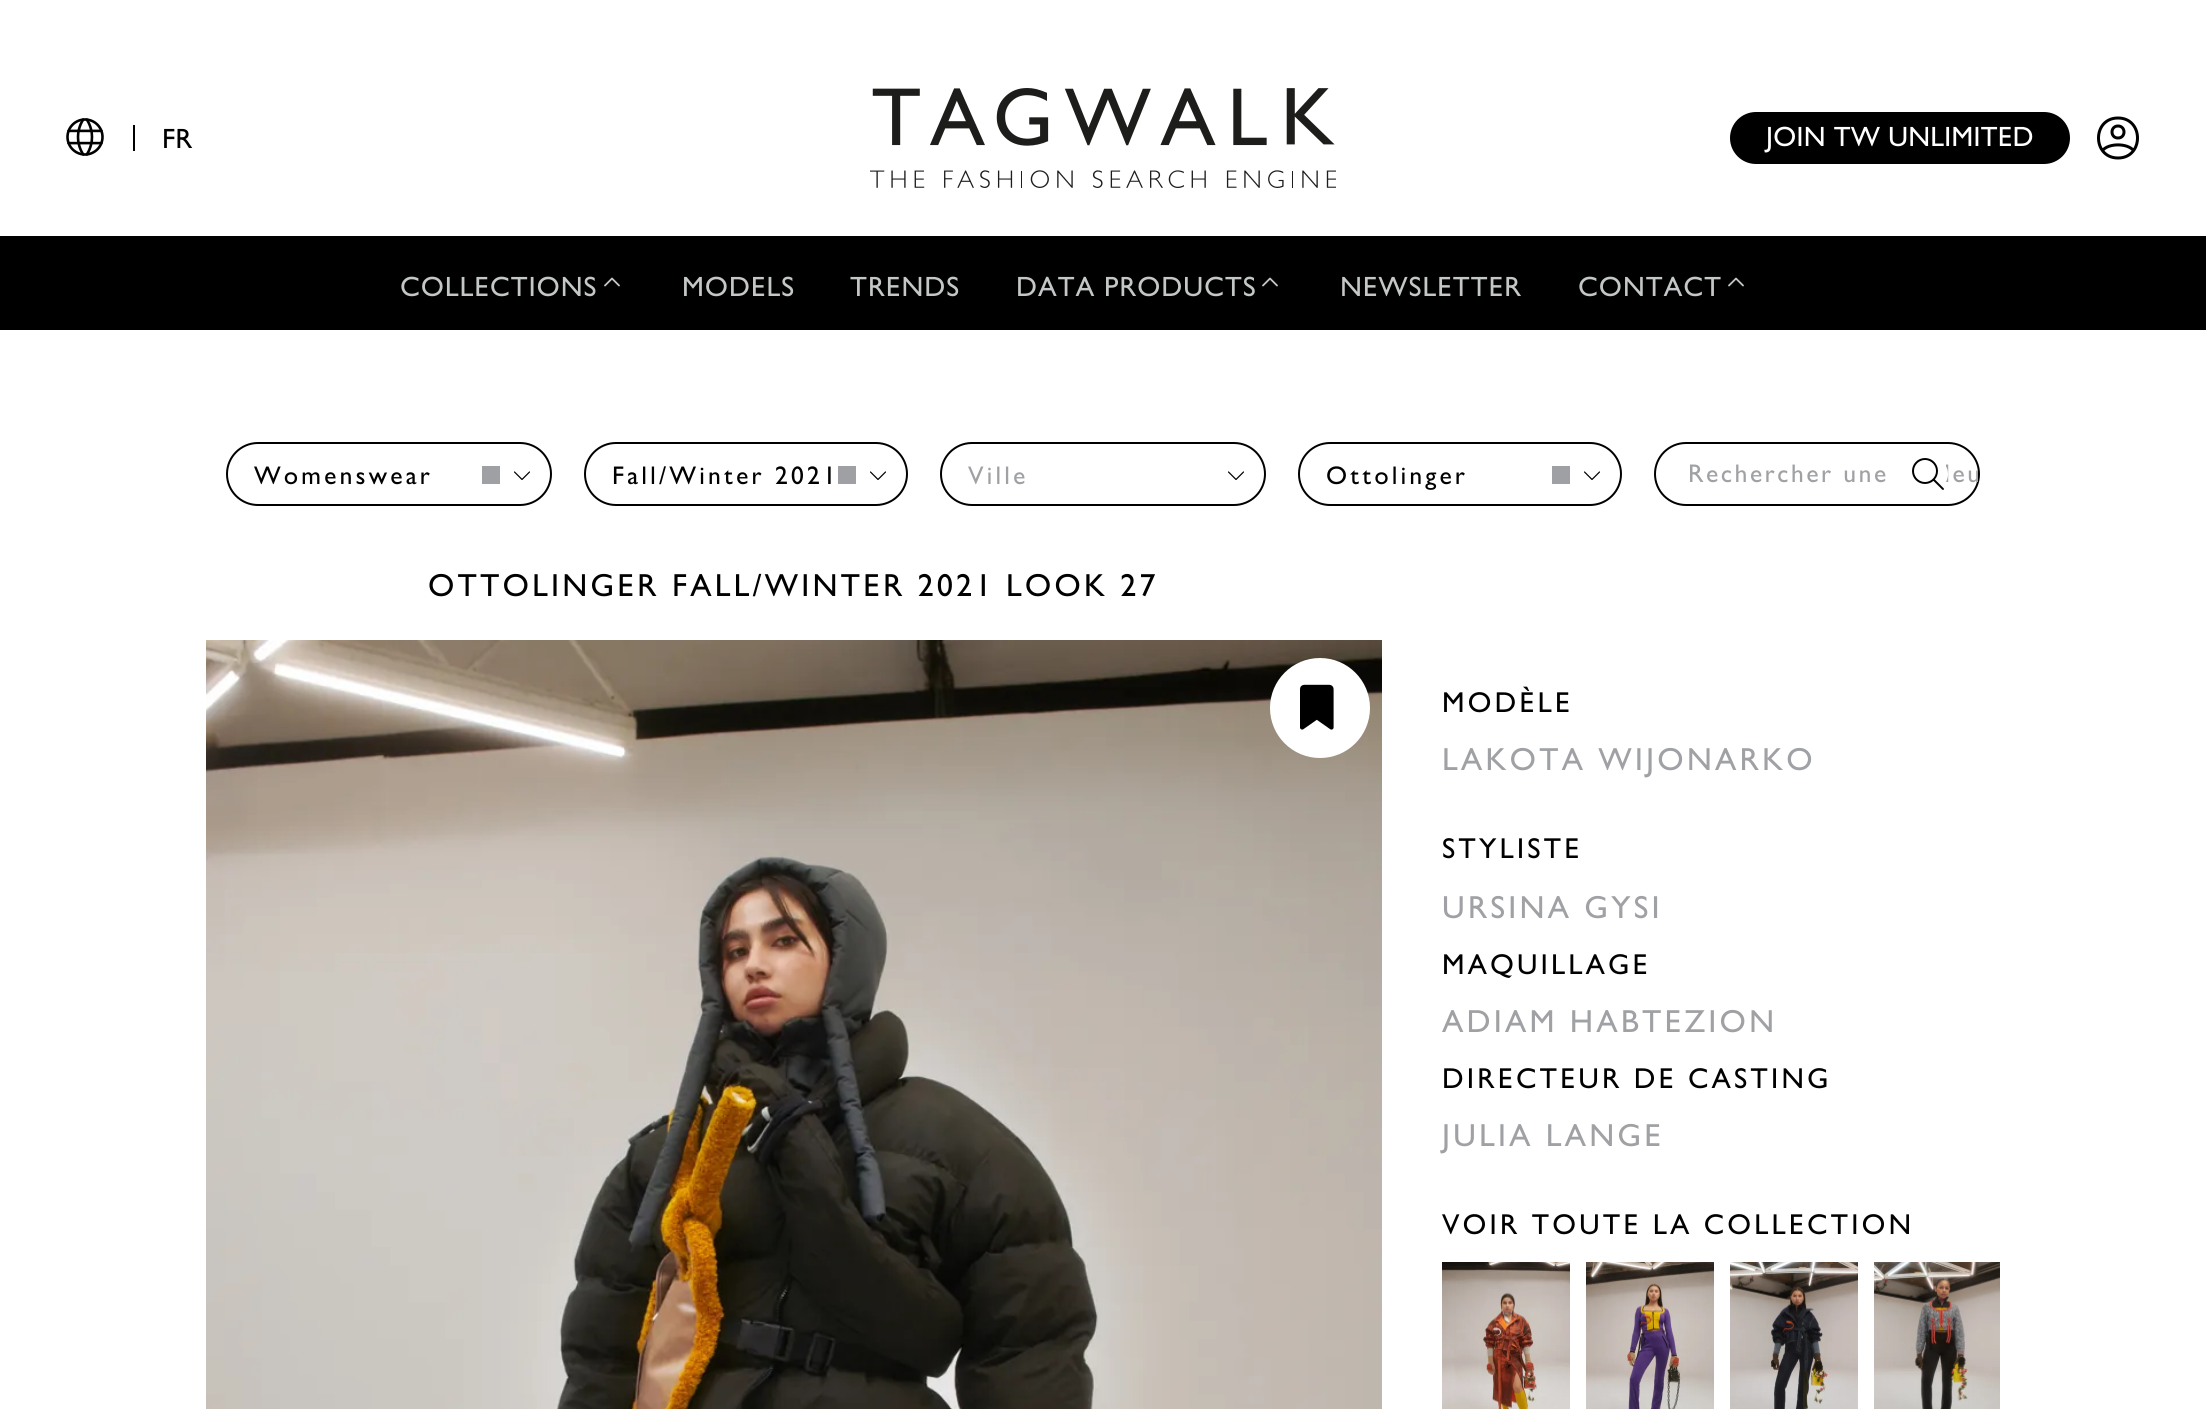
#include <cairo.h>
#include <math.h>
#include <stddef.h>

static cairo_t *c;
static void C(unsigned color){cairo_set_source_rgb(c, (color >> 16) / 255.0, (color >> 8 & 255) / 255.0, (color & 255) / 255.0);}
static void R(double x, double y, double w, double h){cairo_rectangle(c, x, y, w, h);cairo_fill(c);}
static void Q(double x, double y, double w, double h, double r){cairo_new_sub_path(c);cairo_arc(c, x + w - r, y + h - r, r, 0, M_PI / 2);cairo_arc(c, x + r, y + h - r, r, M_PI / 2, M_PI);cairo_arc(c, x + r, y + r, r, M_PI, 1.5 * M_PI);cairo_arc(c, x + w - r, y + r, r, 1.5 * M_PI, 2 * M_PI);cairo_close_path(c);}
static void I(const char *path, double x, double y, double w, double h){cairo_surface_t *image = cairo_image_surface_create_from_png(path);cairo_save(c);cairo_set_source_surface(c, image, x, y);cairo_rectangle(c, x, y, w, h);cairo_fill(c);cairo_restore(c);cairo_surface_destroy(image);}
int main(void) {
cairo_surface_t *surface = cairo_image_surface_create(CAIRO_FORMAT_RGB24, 2206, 1409);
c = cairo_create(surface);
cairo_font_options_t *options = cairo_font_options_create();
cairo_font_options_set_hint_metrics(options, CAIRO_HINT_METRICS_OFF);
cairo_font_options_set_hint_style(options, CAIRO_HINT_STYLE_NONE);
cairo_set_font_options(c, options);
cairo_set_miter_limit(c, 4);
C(0xffffff);
cairo_paint(c);
I("1.png",66,118,38,38);
C(0x000000);
R(133,125,2,26);
I("2.png",164,128,29,20);
I("3.png",870,88,466,100);
Q(1730,112,340,52,26);
cairo_fill(c);
I("4.png",1764,126,269,27);
cairo_new_path(c);
cairo_move_to(c,2118,118);
cairo_curve_to(c,2092,118,2092,158,2118,158);
cairo_curve_to(c,2144,158,2144,118,2118,118);
cairo_close_path(c);
cairo_move_to(c,2102.5,150.5);
cairo_curve_to(c,2108.5,143,2127.5,143,2133.5,150.5);
cairo_move_to(c,2118,138);
cairo_curve_to(c,2126,138,2126,126,2118,126);
cairo_curve_to(c,2110,126,2110,138,2118,138);
cairo_close_path(c);
cairo_set_line_width(c,3);
cairo_set_line_cap(c,CAIRO_LINE_CAP_ROUND);
cairo_set_line_join(c,CAIRO_LINE_JOIN_ROUND);
cairo_stroke(c);
R(0,236,2206,94);
I("5.png",401,276,195,21);
cairo_new_path(c);
cairo_move_to(c,605,285.5);
cairo_line_to(c,612,278.5);
cairo_line_to(c,619,285.5);
C(0xc4c7c7);
cairo_set_line_width(c,1.8);
cairo_stroke(c);
I("6.png",684,276,110,21);
I("7.png",850,276,109,21);
I("8.png",1018,276,237,21);
cairo_new_path(c);
cairo_move_to(c,1263,285.5);
cairo_line_to(c,1270,278.5);
cairo_line_to(c,1277,285.5);
cairo_stroke(c);
I("9.png",1342,276,179,21);
I("10.png",1579,276,142,21);
cairo_new_path(c);
cairo_move_to(c,1729,285.5);
cairo_line_to(c,1736,278.5);
cairo_line_to(c,1743,285.5);
cairo_stroke(c);
Q(227,443,324,62,31);
C(0x000000);
cairo_set_line_width(c,2);
cairo_set_line_cap(c,CAIRO_LINE_CAP_BUTT);
cairo_set_line_join(c,CAIRO_LINE_JOIN_MITER);
cairo_stroke(c);
I("11.png",254,466,176,19);
cairo_save(c);
cairo_rectangle(c,482,466,18,18);
cairo_clip(c);
cairo_new_path(c);
cairo_move_to(c,482,466);
cairo_line_to(c,500,484);
cairo_move_to(c,482,484);
cairo_line_to(c,500,466);
C(0x9ea0a3);
cairo_set_line_width(c,13.5);
cairo_stroke(c);
cairo_restore(c);
I("12.png",514,471,16,9);
Q(585,443,322,62,31);
cairo_stroke(c);
I("13.png",613,466,218,19);
cairo_save(c);
cairo_rectangle(c,838,466,18,18);
cairo_clip(c);
cairo_new_path(c);
cairo_move_to(c,838,466);
cairo_line_to(c,856,484);
cairo_move_to(c,838,484);
cairo_line_to(c,856,466);
C(0x9ea0a3);
cairo_set_line_width(c,13.5);
cairo_stroke(c);
cairo_restore(c);
I("12.png",870,471,16,9);
Q(941,443,324,62,31);
cairo_stroke(c);
I("14.png",968,466,57,19);
I("12.png",1228,471,16,9);
Q(1299,443,322,62,31);
cairo_stroke(c);
I("15.png",1327,466,138,24);
cairo_save(c);
cairo_rectangle(c,1552,466,18,18);
cairo_clip(c);
cairo_new_path(c);
cairo_move_to(c,1552,466);
cairo_line_to(c,1570,484);
cairo_move_to(c,1552,484);
cairo_line_to(c,1570,466);
C(0x9ea0a3);
cairo_set_line_width(c,13.5);
cairo_stroke(c);
cairo_restore(c);
I("12.png",1584,471,16,9);
Q(1655,443,324,62,31);
cairo_stroke(c);
I("16.png",1690,464,288,19);
C(0xffffff);
Q(1898,458,50,32,16);
cairo_fill(c);
I("17.png",1912,458,32,32);
I("18.png",429,573,228,24);
I("19.png",674,573,311,24);
I("20.png",1008,573,147,24);
I("21.png",206,640,1176,769);
cairo_arc(c,1320,708,50,0,2 * M_PI);
cairo_fill(c);
I("22.png",1300,684,34,46);
I("23.png",1444,686,125,27);
I("24.png",1444,747,368,31);
I("25.png",1443,838,135,21);
I("26.png",1443,895,215,24);
I("27.png",1444,954,203,24);
I("28.png",1442,1009,330,24);
I("29.png",1444,1068,383,21);
I("30.png",1440,1123,220,31);
I("31.png",1442,1214,467,21);
I("32.png",1442,1262,128,147);
I("33.png",1586,1262,128,147);
I("34.png",1730,1262,128,147);
I("35.png",1874,1262,126,147);
cairo_surface_write_to_png(surface, "o.png");
cairo_font_options_destroy(options);
cairo_destroy(c);
cairo_surface_destroy(surface);
return 0;
}
